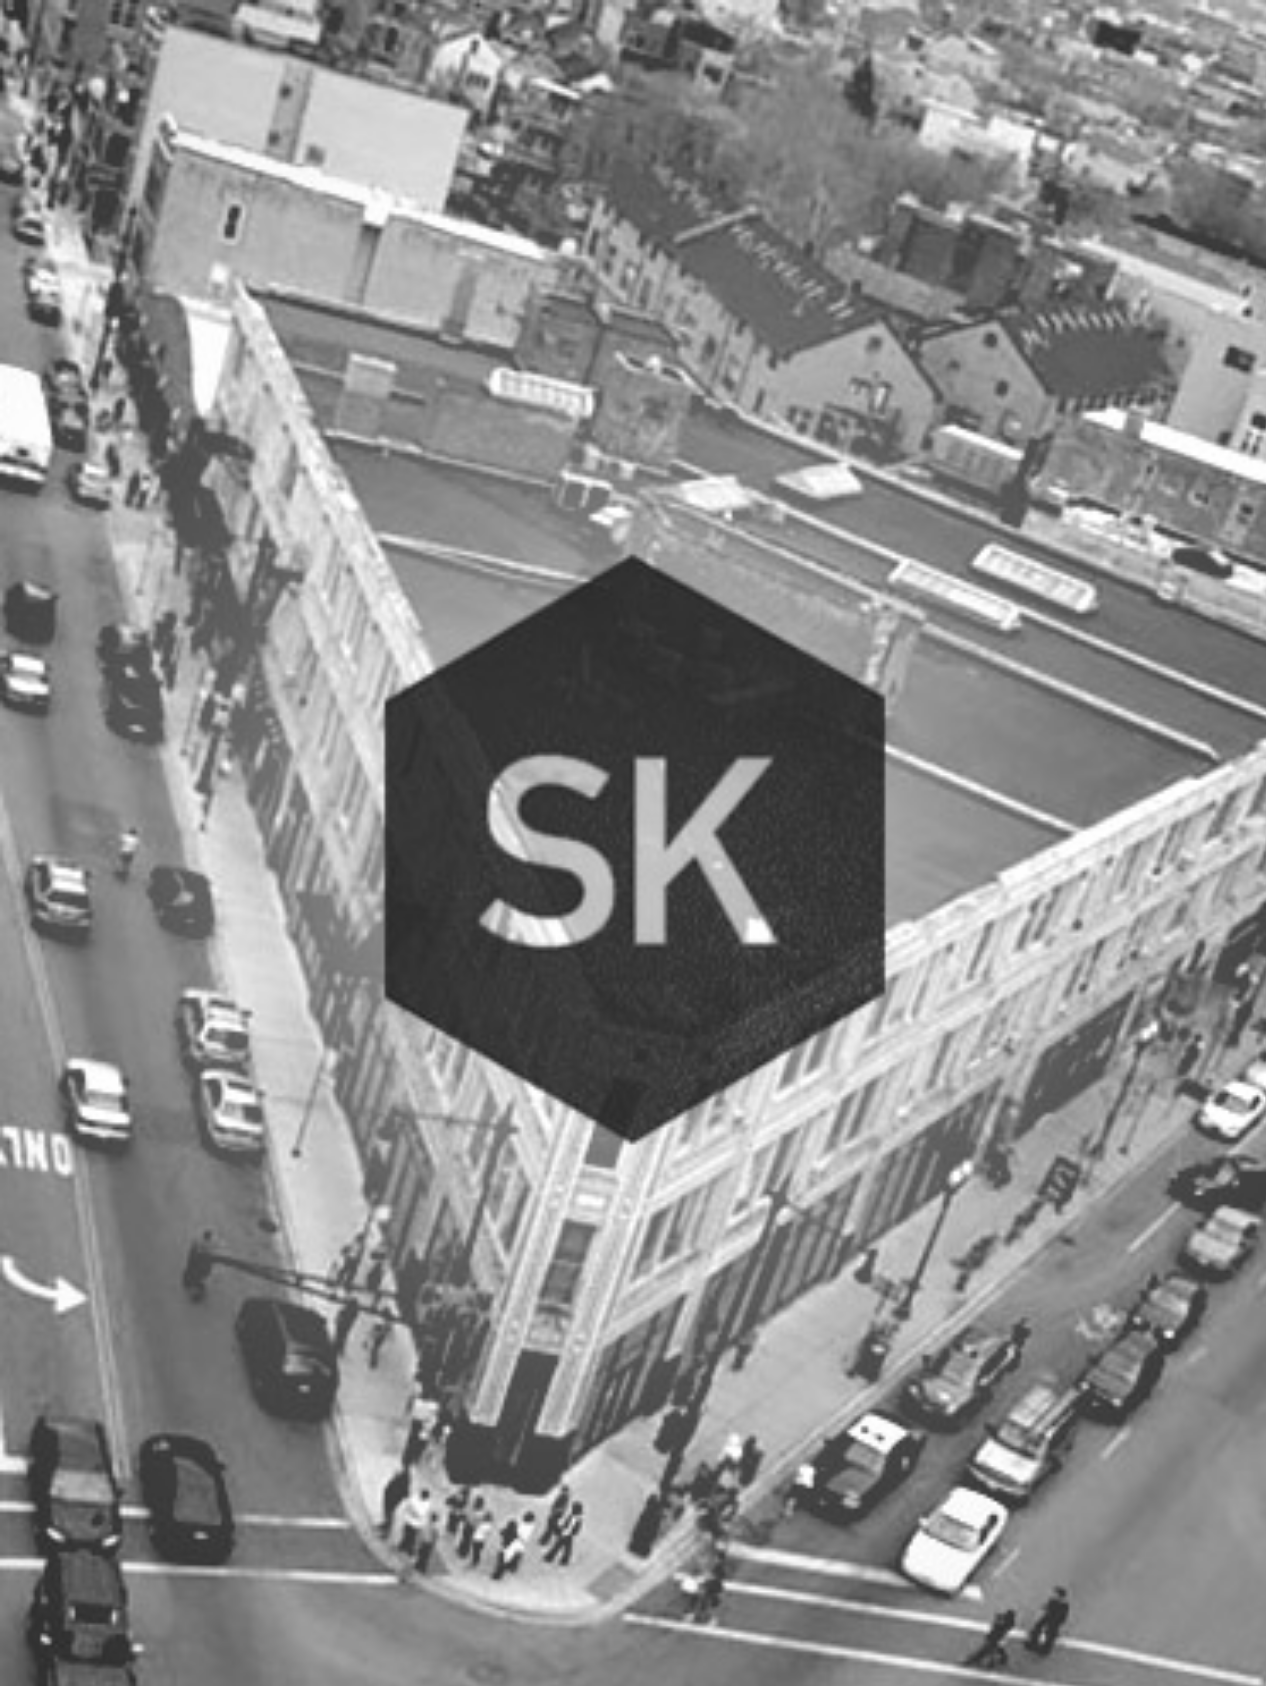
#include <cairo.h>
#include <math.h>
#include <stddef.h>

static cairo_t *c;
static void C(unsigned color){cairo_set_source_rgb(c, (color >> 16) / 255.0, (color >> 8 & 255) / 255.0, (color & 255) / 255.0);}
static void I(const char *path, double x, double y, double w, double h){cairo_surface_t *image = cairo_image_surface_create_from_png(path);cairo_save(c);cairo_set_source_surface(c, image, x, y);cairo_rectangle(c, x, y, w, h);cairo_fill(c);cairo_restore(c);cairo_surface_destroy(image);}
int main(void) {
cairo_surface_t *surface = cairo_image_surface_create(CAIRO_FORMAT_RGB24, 1266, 1686);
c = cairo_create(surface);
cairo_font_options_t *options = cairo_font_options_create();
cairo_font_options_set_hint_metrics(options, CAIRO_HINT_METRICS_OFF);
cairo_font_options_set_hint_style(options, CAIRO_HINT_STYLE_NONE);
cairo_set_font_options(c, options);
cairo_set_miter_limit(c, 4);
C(0xffffff);
cairo_paint(c);
I("1.png",0,0,1266,1686);
cairo_surface_write_to_png(surface, "o.png");
cairo_font_options_destroy(options);
cairo_destroy(c);
cairo_surface_destroy(surface);
return 0;
}
